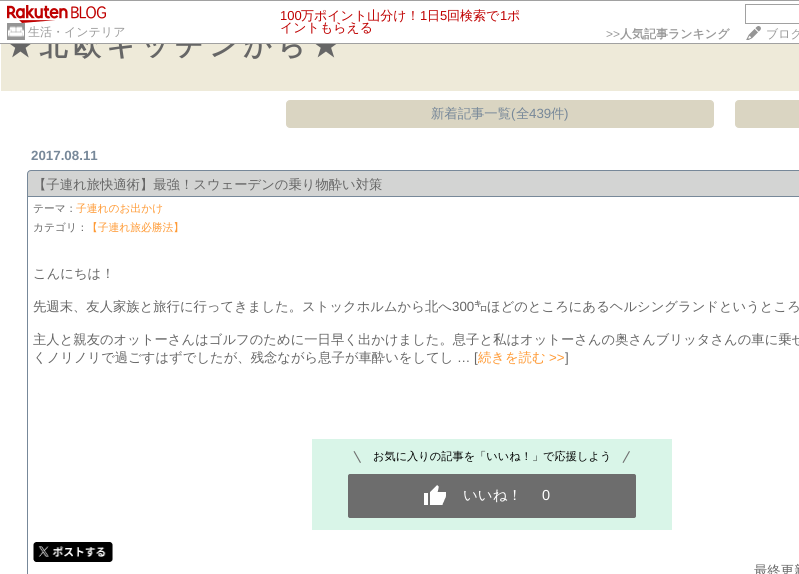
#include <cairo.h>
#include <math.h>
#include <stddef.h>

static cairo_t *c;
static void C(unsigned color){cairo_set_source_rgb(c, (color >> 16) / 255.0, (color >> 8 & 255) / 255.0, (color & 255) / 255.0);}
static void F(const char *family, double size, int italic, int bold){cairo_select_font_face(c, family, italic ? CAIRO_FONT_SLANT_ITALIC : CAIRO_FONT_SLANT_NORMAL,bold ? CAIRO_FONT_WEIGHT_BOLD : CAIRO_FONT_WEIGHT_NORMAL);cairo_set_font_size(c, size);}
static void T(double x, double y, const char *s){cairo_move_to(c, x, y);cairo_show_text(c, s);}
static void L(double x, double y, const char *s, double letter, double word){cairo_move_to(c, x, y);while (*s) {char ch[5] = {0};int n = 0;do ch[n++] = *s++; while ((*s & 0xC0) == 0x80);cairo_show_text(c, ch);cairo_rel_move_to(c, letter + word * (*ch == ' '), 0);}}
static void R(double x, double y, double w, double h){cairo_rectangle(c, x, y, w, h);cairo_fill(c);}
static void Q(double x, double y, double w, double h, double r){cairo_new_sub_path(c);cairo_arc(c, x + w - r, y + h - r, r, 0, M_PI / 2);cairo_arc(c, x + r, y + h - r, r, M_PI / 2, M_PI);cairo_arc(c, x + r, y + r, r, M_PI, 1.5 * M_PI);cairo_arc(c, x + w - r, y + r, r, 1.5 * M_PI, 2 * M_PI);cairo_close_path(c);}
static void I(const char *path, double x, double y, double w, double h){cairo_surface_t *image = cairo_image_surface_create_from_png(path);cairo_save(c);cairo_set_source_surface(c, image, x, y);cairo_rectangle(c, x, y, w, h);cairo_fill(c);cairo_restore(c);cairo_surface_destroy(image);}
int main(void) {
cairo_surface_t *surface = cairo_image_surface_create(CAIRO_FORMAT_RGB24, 799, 574);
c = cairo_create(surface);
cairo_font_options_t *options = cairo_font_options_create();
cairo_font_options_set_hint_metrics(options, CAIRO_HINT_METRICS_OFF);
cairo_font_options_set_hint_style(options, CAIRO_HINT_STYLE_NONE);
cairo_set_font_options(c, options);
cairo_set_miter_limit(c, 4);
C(0xeeead9);
cairo_paint(c);
cairo_rectangle(c,.5,.5,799,91);
C(0xffffff);
cairo_set_line_width(c,1);
cairo_stroke(c);
F("WenQuanYi Zen Hei",28,0,1);
C(0x666666);
L(6,55,"★北欧キッチンから★",5.5,0);
C(0xffffff);
R(0,1,799,42);
C(0xa1a1a1);
R(0,0,799,1);
R(0,43,799,1);
I("1.png",7,5,99,18);
I("2.png",7,23,18,17);
F("WenQuanYi Zen Hei Medium",12,0,0);
C(0x999999);
T(28,36,"生活・インテリア");
F("Liberation Sans",13,0,0);
C(0xbf0000);
T(280,20,"100");
F("WenQuanYi Zen Hei Medium",13,0,0);
T(301,20,"万ポイント山分け！");
F("Liberation Sans",13,0,0);
T(420,20,"1");
F("WenQuanYi Zen Hei Medium",13,0,0);
T(427,20,"日");
F("Liberation Sans",13,0,0);
T(440,20,"5");
F("WenQuanYi Zen Hei Medium",13,0,0);
T(447,20,"回検索で");
F("Liberation Sans",13,0,0);
T(500,20,"1");
F("WenQuanYi Zen Hei Medium",13,0,0);
T(507,20,"ポ");
T(280,32,"イントもらえる");
cairo_rectangle(c,745.5,4.5,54,19);
C(0xa1a1a1);
cairo_stroke(c);
F("Liberation Sans",12,0,0);
C(0x999999);
T(606,38,">>");
F("WenQuanYi Zen Hei",12,0,1);
T(620,38,"人気記事ランキング");
I("3.png",746,26,15,14);
F("WenQuanYi Zen Hei Medium",12,0,0);
T(766,38,"ブログ");
C(0xffffff);
R(0,92,799,482);
C(0xdad5c2);
Q(286.5,100.5,427,27,3.5);
cairo_fill_preserve(c);
cairo_stroke(c);
F("WenQuanYi Zen Hei Medium",13.33,0,0);
C(0x778899);
T(431,118,"新着記事一覧");
F("Liberation Sans",13.33,0,0);
T(511,118,"(");
F("WenQuanYi Zen Hei Medium",13.33,0,0);
T(516,118,"全");
F("Liberation Sans",13.33,0,0);
T(529,118,"439");
F("WenQuanYi Zen Hei Medium",13.33,0,0);
T(551,118,"件");
F("Liberation Sans",13.33,0,0);
T(564,118,")");
C(0xdad5c2);
cairo_new_path(c);
cairo_move_to(c,739,100.5);
cairo_line_to(c,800,100.5);
cairo_curve_to(c,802.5,100.5,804.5,102.5,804.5,105);
cairo_line_to(c,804.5,123);
cairo_curve_to(c,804.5,125.5,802.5,127.5,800,127.5);
cairo_line_to(c,739,127.5);
cairo_curve_to(c,737,127.5,735.5,126,735.5,124);
cairo_line_to(c,735.5,104);
cairo_curve_to(c,735.5,102,737,100.5,739,100.5);
cairo_close_path(c);
cairo_fill_preserve(c);
cairo_stroke(c);
F("Liberation Sans",13.33,0,1);
C(0x778899);
T(31,160,"2017.08.11");
C(0xd3d4d3);
cairo_new_path(c);
cairo_move_to(c,31,170.5);
cairo_line_to(c,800,170.5);
cairo_curve_to(c,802,170.5,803.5,172,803.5,174);
cairo_line_to(c,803.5,196.5);
cairo_line_to(c,27.5,196.5);
cairo_line_to(c,27.5,174);
cairo_curve_to(c,27.5,172,29,170.5,31,170.5);
cairo_close_path(c);
cairo_fill_preserve(c);
C(0x778899);
cairo_stroke(c);
F("WenQuanYi Zen Hei Medium",13.33,0,0);
C(0x666666);
T(33,189,"【子連れ旅快適術】最強！スウェーデンの乗り物酔い対策");
C(0x778899);
cairo_set_fill_rule(c,CAIRO_FILL_RULE_EVEN_ODD);
cairo_new_path(c);
cairo_move_to(c,27,197);
cairo_line_to(c,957,197);
cairo_line_to(c,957,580);
cairo_curve_to(c,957,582,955,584,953,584);
cairo_line_to(c,31,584);
cairo_curve_to(c,29,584,27,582,27,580);
cairo_close_path(c);
cairo_move_to(c,28,197);
cairo_line_to(c,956,197);
cairo_line_to(c,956,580);
cairo_curve_to(c,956,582,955,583,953,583);
cairo_line_to(c,31,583);
cairo_curve_to(c,29,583,28,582,28,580);
cairo_close_path(c);
cairo_fill(c);
F("WenQuanYi Zen Hei Medium",10.75,0,0);
C(0x666666);
T(33,212,"テーマ：");
C(0xff9933);
T(76,212,"子連れのお出かけ");
C(0x666666);
T(33,231,"カテゴリ：");
C(0xff9933);
T(87,231,"【子連れ旅必勝法】");
F("WenQuanYi Zen Hei Medium",13.33,0,0);
C(0x666666);
T(33,278,"こんにちは！");
T(33,311,"先週末、友人家族と旅行に行ってきました。ストックホルムから北へ");
F("Liberation Sans",13.33,0,0);
T(452,311,"300");
F("IPAPGothic",13.33,0,0);
T(474,311,"㌔");
F("WenQuanYi Zen Hei Medium",13.33,0,0);
T(487,311,"ほどのところにあるヘルシングランドというところ");
T(33,344,"主人と親友のオットーさんはゴルフのために一日早く出かけました。息子と私はオットーさんの奥さんブリッタさんの車に乗せ");
T(33,362,"くノリノリで過ごすはずでしたが、残念ながら息子が車酔いをしてし");
F("Liberation Sans",13.33,0,0);
T(457,362,"… [");
F("WenQuanYi Zen Hei Medium",13.33,0,0);
C(0xff9933);
T(478,362,"続きを読む");
F("Liberation Sans",13.33,0,0);
T(549,362,">>");
C(0x666666);
T(565,362,"]");
C(0xd9f5e8);
R(312,439,360,91);
C(0x707070);
cairo_set_fill_rule(c,CAIRO_FILL_RULE_WINDING);
cairo_new_path(c);
cairo_move_to(c,353.5,451.5);
cairo_line_to(c,354.5,451);
cairo_line_to(c,361,462.5);
cairo_line_to(c,360,463);
cairo_close_path(c);
cairo_fill(c);
F("WenQuanYi Zen Hei Medium",11.2,0,0);
C(0x000000);
T(373,460,"お気に入りの記事を「いいね！」で応援しよう");
C(0x707070);
cairo_new_path(c);
cairo_move_to(c,629,451);
cairo_line_to(c,630,451.5);
cairo_line_to(c,623.5,463);
cairo_line_to(c,622.5,462.5);
cairo_close_path(c);
cairo_fill(c);
C(0x6d6d6d);
Q(348.5,474.5,287,43,1.5);
cairo_fill_preserve(c);
cairo_stroke(c);
I("4.png",424,485,22,20);
F("WenQuanYi Zen Hei Medium",14.5,0,0);
C(0xffffff);
T(463,500,"いいね！");
F("Liberation Sans",14.5,0,0);
T(542,500,"0");
I("5.png",33,542,80,20);
F("WenQuanYi Zen Hei Medium",13.33,0,0);
C(0x666666);
T(754,575,"最終更新");
cairo_surface_write_to_png(surface, "o.png");
cairo_font_options_destroy(options);
cairo_destroy(c);
cairo_surface_destroy(surface);
return 0;
}
